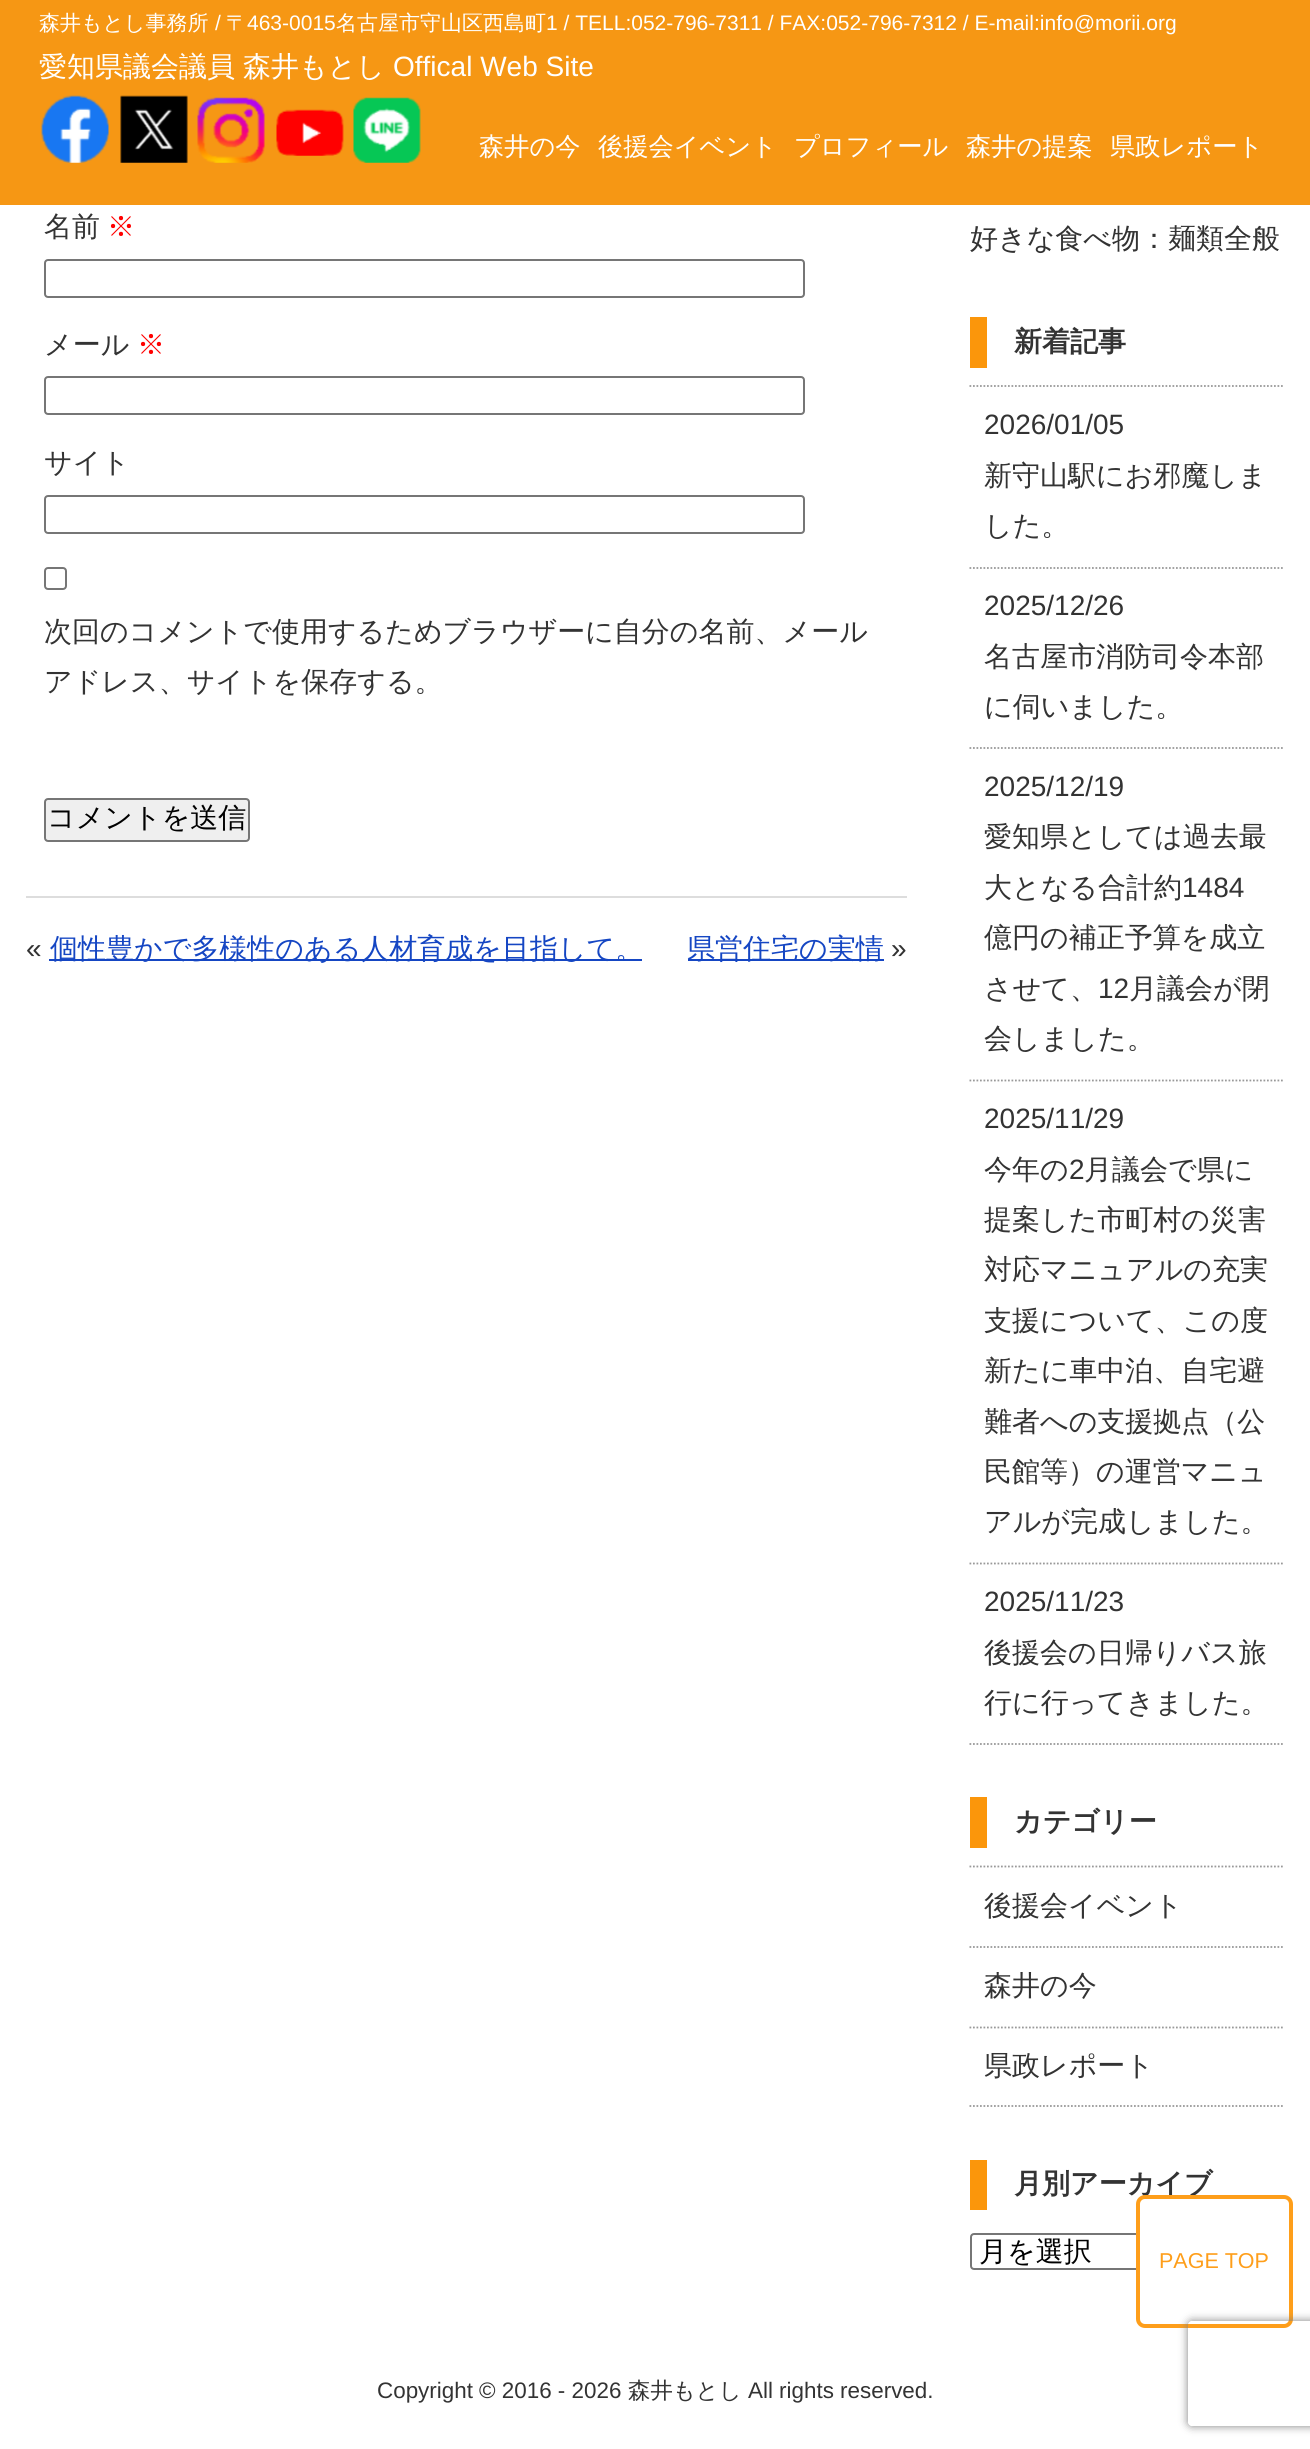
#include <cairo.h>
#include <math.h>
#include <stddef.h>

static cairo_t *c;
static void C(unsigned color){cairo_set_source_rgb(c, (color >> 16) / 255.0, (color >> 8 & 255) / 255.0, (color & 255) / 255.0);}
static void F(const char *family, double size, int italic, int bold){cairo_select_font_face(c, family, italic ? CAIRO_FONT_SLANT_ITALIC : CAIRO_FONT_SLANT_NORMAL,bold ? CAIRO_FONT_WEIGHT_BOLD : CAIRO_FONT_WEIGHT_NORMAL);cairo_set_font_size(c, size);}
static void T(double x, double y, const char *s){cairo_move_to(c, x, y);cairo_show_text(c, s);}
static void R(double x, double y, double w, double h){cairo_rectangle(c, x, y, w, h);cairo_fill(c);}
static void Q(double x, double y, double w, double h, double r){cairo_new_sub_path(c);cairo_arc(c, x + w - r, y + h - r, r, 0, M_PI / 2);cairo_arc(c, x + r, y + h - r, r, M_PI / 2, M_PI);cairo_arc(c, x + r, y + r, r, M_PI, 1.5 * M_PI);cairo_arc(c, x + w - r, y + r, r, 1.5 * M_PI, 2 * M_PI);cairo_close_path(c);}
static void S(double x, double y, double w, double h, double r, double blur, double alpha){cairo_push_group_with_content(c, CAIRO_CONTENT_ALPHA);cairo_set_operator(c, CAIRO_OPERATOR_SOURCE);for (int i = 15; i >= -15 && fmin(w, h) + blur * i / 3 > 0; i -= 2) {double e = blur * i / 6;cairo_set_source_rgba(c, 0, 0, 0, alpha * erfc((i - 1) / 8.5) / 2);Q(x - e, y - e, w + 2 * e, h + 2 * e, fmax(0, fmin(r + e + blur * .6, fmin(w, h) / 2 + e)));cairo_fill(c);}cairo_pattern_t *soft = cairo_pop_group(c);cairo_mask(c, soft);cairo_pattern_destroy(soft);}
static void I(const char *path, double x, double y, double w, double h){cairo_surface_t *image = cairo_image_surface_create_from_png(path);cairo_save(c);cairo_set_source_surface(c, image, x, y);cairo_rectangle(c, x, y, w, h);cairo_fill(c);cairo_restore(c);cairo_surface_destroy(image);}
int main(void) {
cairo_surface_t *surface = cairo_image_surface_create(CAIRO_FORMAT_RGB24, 1310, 2449);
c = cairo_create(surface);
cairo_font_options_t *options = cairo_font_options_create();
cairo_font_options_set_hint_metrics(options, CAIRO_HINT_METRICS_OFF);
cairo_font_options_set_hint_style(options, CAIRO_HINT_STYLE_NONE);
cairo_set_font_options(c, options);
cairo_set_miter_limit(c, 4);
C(0xffffff);
cairo_paint(c);
C(0xf69714);
R(0,0,1310,205);
F("WenQuanYi Zen Hei Medium",21,0,0);
C(0xffffff);
T(39,30,"森井もとし事務所");
F("Liberation Sans",21,0,0);
T(215,30,"/");
F("WenQuanYi Zen Hei Medium",21,0,0);
T(226,30,"〒");
F("Liberation Sans",21,0,0);
T(247,30,"463-0015");
F("WenQuanYi Zen Hei Medium",21,0,0);
T(336,30,"名古屋市守山区西島町");
F("Liberation Sans",21,0,0);
T(546,30,"1 / TELL:052-796-7311 / FAX:052-796-7312 / E-mail:info@morii.org");
F("WenQuanYi Zen Hei Medium",28,0,0);
T(39,76,"愛知県議会議員");
T(243,76,"森井もとし");
F("Liberation Sans",28,0,0);
T(393,76,"Offical Web Site");
I("1.png",41,95,68,68);
I("2.png",120,95,68,68);
I("3.png",197,97,68,66);
I("4.png",276,109,68,47);
I("5.png",353,97,68,66);
F("WenQuanYi Zen Hei Medium",25.25,0,0);
T(479,155,"森井の今");
T(598,155,"後援会イベント");
T(794,155,"プロフィール");
T(966,155,"森井の提案");
T(1110,155,"県政レポート");
F("WenQuanYi Zen Hei Medium",28,0,0);
C(0x333333);
T(44,236,"名前");
C(0xff0000);
T(107,236,"※");
Q(45,260,759,37,3);
C(0x767676);
cairo_stroke(c);
C(0x333333);
T(44,354,"メール");
C(0xff0000);
T(137,354,"※");
Q(45,377,759,37,3);
C(0x767676);
cairo_stroke(c);
C(0x333333);
T(44,472,"サイト");
Q(45,496,759,37,3);
C(0x767676);
cairo_stroke(c);
Q(45,568,21,21,3);
cairo_stroke(c);
C(0x333333);
T(44,641,"次回のコメントで使用するためブラウザーに自分の名前、メール");
T(44,691,"アドレス、サイトを保存する。");
C(0xefefef);
Q(45,799,204,42,3);
cairo_fill_preserve(c);
C(0x767676);
cairo_stroke(c);
C(0x000000);
T(47,827,"コメントを送信");
C(0xdddddd);
R(26,896,881,2);
F("Liberation Sans",28,0,0);
C(0x333333);
T(26,958,"«");
C(0x1546c3);
R(49,959,593,2);
F("WenQuanYi Zen Hei Medium",28,0,0);
T(50,958,"個性豊かで多様性のある人材育成を目指して。");
R(688,959,196,2);
T(687,958,"県営住宅の実情");
F("Liberation Sans",28,0,0);
C(0x333333);
T(891,958,"»");
F("WenQuanYi Zen Hei Medium",28,0,0);
T(970,248,"好きな食べ物：麺類全般");
C(0xfb960b);
R(970,317,17,51);
F("WenQuanYi Zen Hei",28,0,1);
C(0x333333);
T(1014,351,"新着記事");
cairo_new_path(c);
cairo_move_to(c,969.5,386);
cairo_line_to(c,1284.5,386);
C(0x999999);
cairo_set_line_width(c,1.8);
cairo_set_dash(c,(double[]){1.75,1.75},2,0);
cairo_stroke(c);
cairo_new_path(c);
cairo_move_to(c,969.5,568);
cairo_line_to(c,1284.5,568);
cairo_stroke(c);
F("Liberation Sans",28,0,0);
C(0x333333);
T(984,434,"2026/01/05");
F("WenQuanYi Zen Hei Medium",28,0,0);
T(984,485,"新守山駅にお邪魔しま");
T(984,535,"した。");
cairo_new_path(c);
cairo_move_to(c,969.5,748);
cairo_line_to(c,1284.5,748);
C(0x999999);
cairo_stroke(c);
F("Liberation Sans",28,0,0);
C(0x333333);
T(984,615,"2025/12/26");
F("WenQuanYi Zen Hei Medium",28,0,0);
T(984,666,"名古屋市消防司令本部");
T(984,716,"に伺いました。");
cairo_new_path(c);
cairo_move_to(c,969.5,1080.5);
cairo_line_to(c,1284.5,1080.5);
C(0x999999);
cairo_stroke(c);
F("Liberation Sans",28,0,0);
C(0x333333);
T(984,796,"2025/12/19");
F("WenQuanYi Zen Hei Medium",28,0,0);
T(984,846,"愛知県としては過去最");
T(984,897,"大となる合計約");
F("Liberation Sans",28,0,0);
T(1182,897,"1484");
F("WenQuanYi Zen Hei Medium",28,0,0);
T(984,947,"億円の補正予算を成立");
T(984,998,"させて、");
F("Liberation Sans",28,0,0);
T(1098,998,"12");
F("WenQuanYi Zen Hei Medium",28,0,0);
T(1129,998,"月議会が閉");
T(984,1048,"会しました。");
cairo_new_path(c);
cairo_move_to(c,969.5,1563.5);
cairo_line_to(c,1284.5,1563.5);
C(0x999999);
cairo_stroke(c);
F("Liberation Sans",28,0,0);
C(0x333333);
T(984,1128,"2025/11/29");
F("WenQuanYi Zen Hei Medium",28,0,0);
T(984,1179,"今年の");
F("Liberation Sans",28,0,0);
T(1069,1179,"2");
F("WenQuanYi Zen Hei Medium",28,0,0);
T(1084,1179,"月議会で県に");
T(984,1229,"提案した市町村の災害");
T(984,1279,"対応マニュアルの充実");
T(984,1330,"支援について、この度");
T(984,1380,"新たに車中泊、自宅避");
T(984,1431,"難者への支援拠点（公");
T(984,1481,"民館等）の運営マニュ");
T(984,1531,"アルが完成しました。");
cairo_new_path(c);
cairo_move_to(c,969.5,1744);
cairo_line_to(c,1284.5,1744);
C(0x999999);
cairo_stroke(c);
F("Liberation Sans",28,0,0);
C(0x333333);
T(984,1611,"2025/11/23");
F("WenQuanYi Zen Hei Medium",28,0,0);
T(984,1662,"後援会の日帰りバス旅");
T(984,1712,"行に行ってきました。");
C(0xfb960b);
R(970,1797,17,51);
F("WenQuanYi Zen Hei",28,0,1);
C(0x333333);
T(1014,1831,"カテゴリー");
cairo_new_path(c);
cairo_move_to(c,969.5,1866.5);
cairo_line_to(c,1284.5,1866.5);
C(0x999999);
cairo_stroke(c);
cairo_new_path(c);
cairo_move_to(c,969.5,1947);
cairo_line_to(c,1284.5,1947);
cairo_stroke(c);
F("WenQuanYi Zen Hei Medium",28,0,0);
C(0x333333);
T(984,1915,"後援会イベント");
cairo_new_path(c);
cairo_move_to(c,969.5,2027.5);
cairo_line_to(c,1284.5,2027.5);
C(0x999999);
cairo_stroke(c);
C(0x333333);
T(984,1995,"森井の今");
cairo_new_path(c);
cairo_move_to(c,969.5,2106);
cairo_line_to(c,1284.5,2106);
C(0x999999);
cairo_stroke(c);
C(0x333333);
T(984,2075,"県政レポート");
C(0xfb960b);
R(970,2160,17,50);
F("WenQuanYi Zen Hei",28,0,1);
C(0x333333);
T(1014,2193,"月別アーカイブ");
Q(971,2234,236,35,3);
C(0x767676);
cairo_set_line_width(c,2);
cairo_set_dash(c,NULL,0,0);
cairo_stroke(c);
F("WenQuanYi Zen Hei Medium",28,0,0);
C(0x000000);
T(979,2261,"月を選択");
C(0xffffff);
Q(1138,2197,153,129,7);
cairo_fill_preserve(c);
C(0xfe9e1a);
cairo_set_line_width(c,4);
cairo_stroke(c);
F("Liberation Sans",21.5,0,0);
T(1159,2268,"PAGE TOP");
F("Liberation Sans",22.4,0,0);
C(0x333333);
T(377,2398,"Copyright © 2016 - 2026");
F("WenQuanYi Zen Hei Medium",22.4,0,0);
T(628,2398,"森井もとし");
F("Liberation Sans",22.4,0,0);
T(748,2398,"All rights reserved.");
cairo_save(c);
cairo_set_fill_rule(c,CAIRO_FILL_RULE_EVEN_ODD);
cairo_new_path(c);
cairo_move_to(c,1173,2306);
cairo_line_to(c,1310,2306);
cairo_line_to(c,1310,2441);
cairo_line_to(c,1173,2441);
cairo_close_path(c);
cairo_move_to(c,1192,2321);
cairo_line_to(c,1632,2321);
cairo_curve_to(c,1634,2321,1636,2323,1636,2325);
cairo_line_to(c,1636,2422);
cairo_curve_to(c,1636,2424,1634,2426,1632,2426);
cairo_line_to(c,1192,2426);
cairo_curve_to(c,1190,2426,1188,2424,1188,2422);
cairo_line_to(c,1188,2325);
cairo_curve_to(c,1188,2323,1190,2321,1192,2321);
cairo_close_path(c);
cairo_clip(c);
C(0x808080);
S(1188,2321,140,105,4,4.5,1);
cairo_restore(c);
cairo_surface_write_to_png(surface, "o.png");
cairo_font_options_destroy(options);
cairo_destroy(c);
cairo_surface_destroy(surface);
return 0;
}
